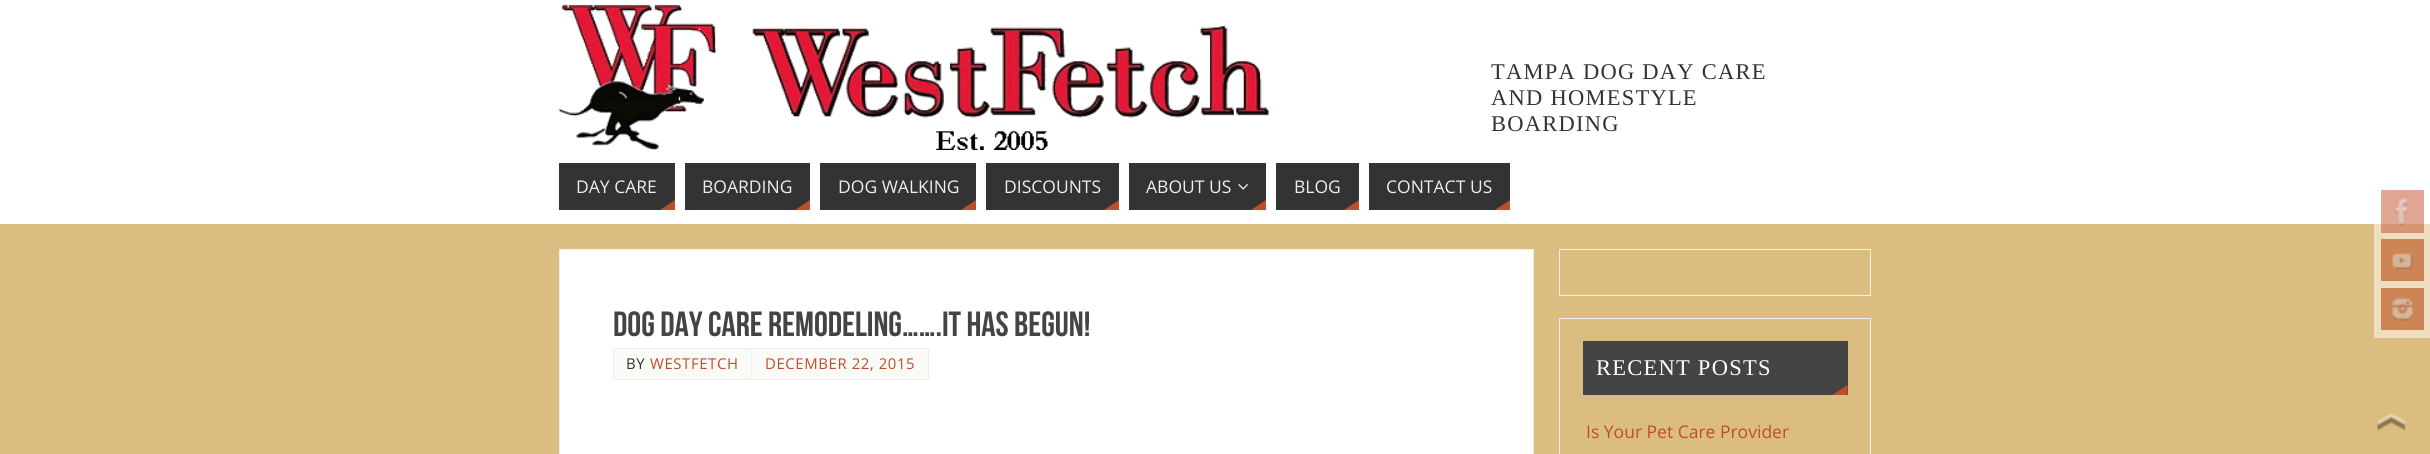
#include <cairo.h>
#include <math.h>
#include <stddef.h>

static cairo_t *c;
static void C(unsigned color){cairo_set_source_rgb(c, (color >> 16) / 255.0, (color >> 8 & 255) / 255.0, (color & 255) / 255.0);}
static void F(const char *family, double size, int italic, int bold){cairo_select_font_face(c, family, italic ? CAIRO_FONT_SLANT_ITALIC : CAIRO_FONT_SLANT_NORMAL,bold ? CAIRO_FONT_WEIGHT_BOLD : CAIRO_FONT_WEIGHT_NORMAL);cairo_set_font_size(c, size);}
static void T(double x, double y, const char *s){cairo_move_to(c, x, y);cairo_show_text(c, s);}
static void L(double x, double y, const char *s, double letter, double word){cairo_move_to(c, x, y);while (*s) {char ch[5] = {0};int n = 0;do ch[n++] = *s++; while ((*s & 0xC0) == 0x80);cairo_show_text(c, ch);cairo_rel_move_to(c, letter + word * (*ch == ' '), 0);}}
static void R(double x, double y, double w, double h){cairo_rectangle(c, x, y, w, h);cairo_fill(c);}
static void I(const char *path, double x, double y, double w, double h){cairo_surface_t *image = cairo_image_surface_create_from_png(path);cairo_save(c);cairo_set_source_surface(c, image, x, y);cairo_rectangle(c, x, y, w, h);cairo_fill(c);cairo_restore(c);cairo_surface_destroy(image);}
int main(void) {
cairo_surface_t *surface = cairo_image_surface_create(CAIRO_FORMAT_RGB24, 2430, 454);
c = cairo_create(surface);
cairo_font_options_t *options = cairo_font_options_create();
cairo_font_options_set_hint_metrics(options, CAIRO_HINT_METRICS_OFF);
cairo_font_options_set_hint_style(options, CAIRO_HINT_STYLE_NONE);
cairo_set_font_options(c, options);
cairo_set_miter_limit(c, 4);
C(0xdbbd81);
cairo_paint(c);
C(0xeddec0);
R(2374,224,56,114);
C(0xd69674);
R(2381,224,43,9);
C(0xffffff);
R(0,0,2430,224);
C(0xdfa694);
R(2381,190,43,34);
I("1.png",558,4,711,146);
F("Liberation Serif",22.5,0,0);
C(0x333333);
L(1491,79,"TAMPA DOG DAY CARE",1.25,0);
L(1491,105,"AND HOMESTYLE",1.25,0);
L(1491,131,"BOARDING",1.25,0);
R(559,163,116,47);
F("Open Sans",17.5,0,0);
C(0xeeeeee);
T(576,193,"DAY CARE");
C(0xbf4d28);
cairo_new_path(c);
cairo_move_to(c,675,210);
cairo_line_to(c,660,210);
cairo_line_to(c,675,200);
cairo_close_path(c);
cairo_fill(c);
C(0x333333);
R(685,163,125,47);
C(0xeeeeee);
T(702,193,"BOARDING");
C(0xbf4d28);
cairo_new_path(c);
cairo_move_to(c,810,210);
cairo_line_to(c,795,210);
cairo_line_to(c,810,200);
cairo_close_path(c);
cairo_fill(c);
C(0x333333);
R(820,163,156,47);
C(0xeeeeee);
T(838,193,"DOG WALKING");
C(0xbf4d28);
cairo_new_path(c);
cairo_move_to(c,976,210);
cairo_line_to(c,961,210);
cairo_line_to(c,976,200);
cairo_close_path(c);
cairo_fill(c);
C(0x333333);
R(986,163,133,47);
C(0xeeeeee);
T(1004,193,"DISCOUNTS");
C(0xbf4d28);
cairo_new_path(c);
cairo_move_to(c,1119,210);
cairo_line_to(c,1104,210);
cairo_line_to(c,1119,200);
cairo_close_path(c);
cairo_fill(c);
C(0x333333);
R(1129,163,137,47);
C(0xeeeeee);
T(1146,193,"ABOUT US");
I("2.png",1238,184,10,6);
C(0xbf4d28);
cairo_new_path(c);
cairo_move_to(c,1266,210);
cairo_line_to(c,1251,210);
cairo_line_to(c,1266,200);
cairo_close_path(c);
cairo_fill(c);
C(0x333333);
R(1276,163,83,47);
C(0xeeeeee);
T(1294,193,"BLOG");
C(0xbf4d28);
cairo_new_path(c);
cairo_move_to(c,1359,210);
cairo_line_to(c,1344,210);
cairo_line_to(c,1359,200);
cairo_close_path(c);
cairo_fill(c);
C(0x333333);
R(1369,163,141,47);
C(0xeeeeee);
T(1386,193,"CONTACT US");
C(0xbf4d28);
cairo_new_path(c);
cairo_move_to(c,1510,210);
cairo_line_to(c,1495,210);
cairo_line_to(c,1510,200);
cairo_close_path(c);
cairo_fill(c);
I("3.png",2394,198,14,28);
C(0xcd8555);
R(2381,239,43,42);
I("4.png",2392,253,21,16);
R(2381,288,43,42);
I("5.png",2391,298,23,23);
C(0xffffff);
cairo_rectangle(c,559.5,249.5,974,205);
cairo_fill_preserve(c);
C(0xeeeeee);
cairo_set_line_width(c,1);
cairo_stroke(c);
F("Bebas Neue",35,0,0);
C(0x444444);
T(613,336,"Dog Day Care Remodeling…….IT HAS BEGUN!");
C(0xfafaf7);
R(614,349,137,30);
cairo_rectangle(c,613.5,348.5,139,31);
C(0xeeeeee);
cairo_stroke(c);
F("Open Sans",14.9,0,0);
C(0x333333);
L(626,369,"BY",.6,0);
C(0xbf4d28);
L(650,369,"WESTFETCH",.6,0);
C(0xfafaf7);
cairo_rectangle(c,751.5,348.5,177,31);
cairo_fill_preserve(c);
C(0xeeeeee);
cairo_stroke(c);
C(0xbf4d28);
L(765,369,"DECEMBER 22, 2015",.6,0);
cairo_rectangle(c,1559.5,249.5,311,46);
C(0xeeeeee);
cairo_stroke(c);
cairo_rectangle(c,1559.5,318.5,311,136);
cairo_stroke(c);
C(0x444444);
R(1583,341,265,54);
F("Liberation Serif",22.5,0,0);
C(0xffffff);
L(1596,375,"RECENT POSTS",1.25,0);
C(0xbf4d28);
cairo_new_path(c);
cairo_move_to(c,1847.5,395);
cairo_line_to(c,1832.5,395);
cairo_line_to(c,1847.5,385);
cairo_close_path(c);
cairo_fill(c);
F("Open Sans",17.5,0,0);
T(1586,438,"Is Your Pet Care Provider");
I("6.png",2377,413,29,18);
cairo_surface_write_to_png(surface, "o.png");
cairo_font_options_destroy(options);
cairo_destroy(c);
cairo_surface_destroy(surface);
return 0;
}
